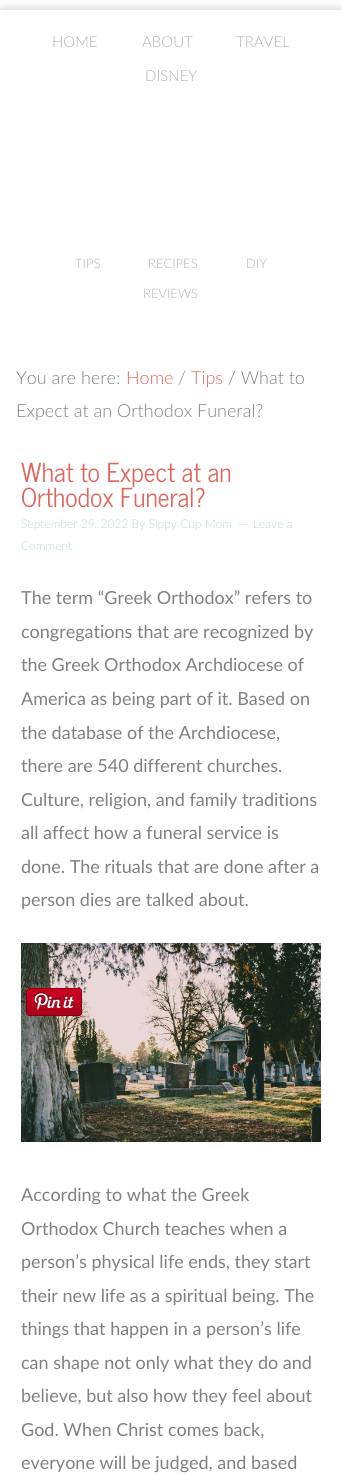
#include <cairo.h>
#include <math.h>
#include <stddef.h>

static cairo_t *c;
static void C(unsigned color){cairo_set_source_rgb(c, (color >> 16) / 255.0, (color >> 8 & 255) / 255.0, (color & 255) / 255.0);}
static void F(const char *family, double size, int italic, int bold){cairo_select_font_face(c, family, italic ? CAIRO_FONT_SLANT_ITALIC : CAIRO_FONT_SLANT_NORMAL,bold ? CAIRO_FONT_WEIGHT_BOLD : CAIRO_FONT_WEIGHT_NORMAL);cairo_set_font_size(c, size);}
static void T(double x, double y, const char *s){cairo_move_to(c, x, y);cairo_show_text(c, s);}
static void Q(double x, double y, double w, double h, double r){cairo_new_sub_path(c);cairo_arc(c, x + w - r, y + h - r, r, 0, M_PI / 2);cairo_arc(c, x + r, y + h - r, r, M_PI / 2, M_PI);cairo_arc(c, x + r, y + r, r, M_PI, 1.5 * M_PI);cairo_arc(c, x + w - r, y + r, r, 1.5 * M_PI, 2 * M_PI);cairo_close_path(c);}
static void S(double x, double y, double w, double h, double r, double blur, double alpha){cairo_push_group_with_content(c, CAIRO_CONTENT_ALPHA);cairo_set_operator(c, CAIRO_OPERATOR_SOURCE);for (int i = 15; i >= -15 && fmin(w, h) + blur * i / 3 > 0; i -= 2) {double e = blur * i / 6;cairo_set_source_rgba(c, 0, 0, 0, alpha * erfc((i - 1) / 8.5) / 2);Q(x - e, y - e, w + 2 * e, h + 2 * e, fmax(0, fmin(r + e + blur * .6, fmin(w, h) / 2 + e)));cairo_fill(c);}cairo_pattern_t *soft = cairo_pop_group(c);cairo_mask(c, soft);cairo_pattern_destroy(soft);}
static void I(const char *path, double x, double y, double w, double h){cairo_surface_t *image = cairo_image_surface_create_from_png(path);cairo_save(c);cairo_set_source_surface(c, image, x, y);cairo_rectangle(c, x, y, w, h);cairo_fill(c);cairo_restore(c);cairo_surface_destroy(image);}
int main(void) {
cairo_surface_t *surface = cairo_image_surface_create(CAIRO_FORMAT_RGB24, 342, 1475);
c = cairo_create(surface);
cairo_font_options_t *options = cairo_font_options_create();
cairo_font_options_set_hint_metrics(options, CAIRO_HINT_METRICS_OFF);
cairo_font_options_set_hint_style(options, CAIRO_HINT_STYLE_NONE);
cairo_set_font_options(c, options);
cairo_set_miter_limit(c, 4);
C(0xffffff);
cairo_paint(c);
cairo_save(c);
cairo_rectangle(c,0,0,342,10);
cairo_clip(c);
C(0xdddddd);
S(5,10,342,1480,0,5,1);
S(-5,10,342,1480,0,5,1);
cairo_restore(c);
F("Lato Light",15,0,0);
C(0xb1b1b1);
T(52,47,"HOME");
T(142,47,"ABOUT");
T(236,47,"TRAVEL");
T(145,81,"DISNEY");
F("Lato Light",13,0,0);
T(75,268,"TIPS");
T(148,268,"RECIPES");
T(246,268,"DIY");
T(143,298,"REVIEWS");
F("Lato Light",18,0,0);
C(0x808080);
T(16,384,"You are here:");
C(0xe1655c);
T(126,384,"Home");
C(0x808080);
T(178,384,"/");
C(0xe1655c);
T(191,384,"Tips");
C(0x808080);
T(228,384,"/ What to");
T(16,417,"Expect at an Orthodox Funeral?");
F("News Cycle",26,0,0);
C(0xe1655c);
T(21,482,"What to Expect at an");
T(21,507,"Orthodox Funeral?");
F("Lato Light",12,0,0);
C(0xb5dbd4);
T(21,528,"September 29, 2022 By Sippy Cup Mom");
T(238,528,"—");
T(253,528,"Leave a");
T(21,550,"Comment");
F("Lato",18,0,0);
C(0x808080);
T(21,604,"The term “Greek Orthodox” refers to");
T(21,638,"congregations that are recognized by");
T(21,671,"the Greek Orthodox Archdiocese of");
T(21,705,"America as being part of it. Based on");
T(21,739,"the database of the Archdiocese,");
T(21,772,"there are 540 different churches.");
T(21,806,"Culture, religion, and family traditions");
T(21,839,"all affect how a funeral service is");
T(21,873,"done. The rituals that are done after a");
T(21,906,"person dies are talked about.");
I("1.png",21,943,300,199);
I("2.png",26,988,56,28);
T(21,1201,"According to what the Greek");
T(21,1235,"Orthodox Church teaches when a");
T(21,1268,"person’s physical life ends, they start");
T(21,1302,"their new life as a spiritual being. The");
T(21,1335,"things that happen in a person’s life");
T(21,1369,"can shape not only what they do and");
T(21,1402,"believe, but also how they feel about");
T(21,1436,"God. When Christ comes back,");
T(21,1469,"everyone will be judged, and based");
cairo_surface_write_to_png(surface, "o.png");
cairo_font_options_destroy(options);
cairo_destroy(c);
cairo_surface_destroy(surface);
return 0;
}
